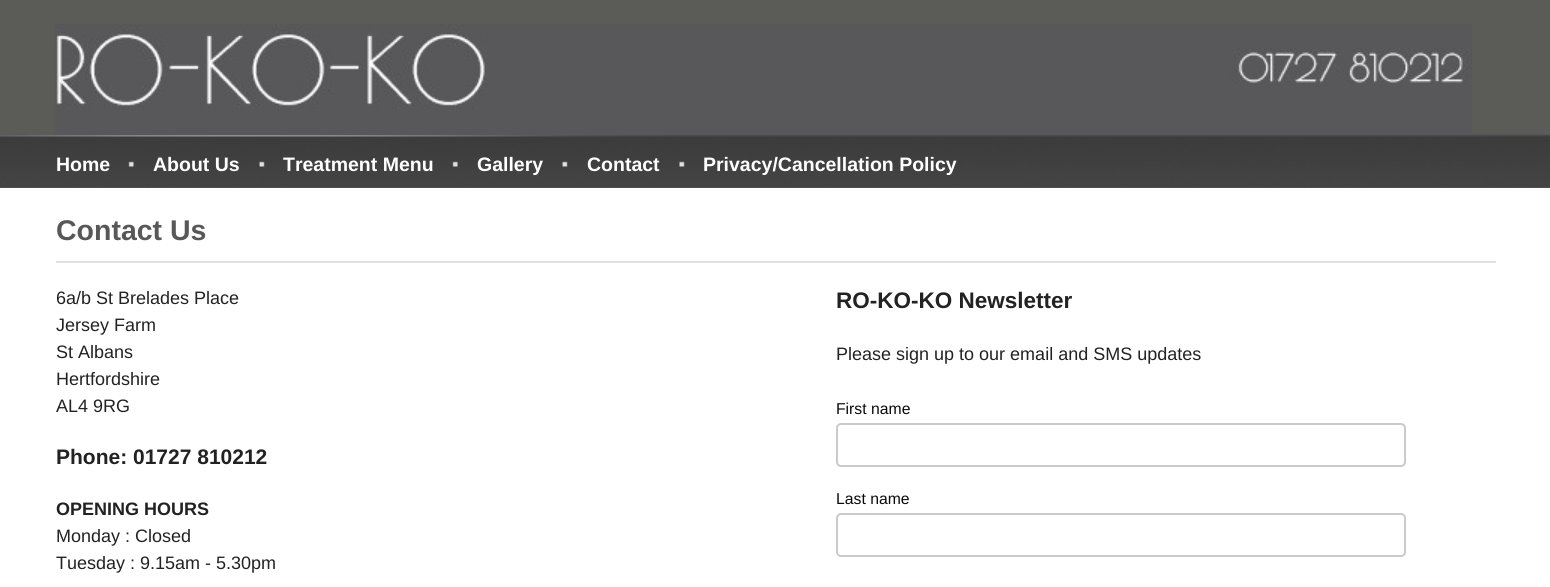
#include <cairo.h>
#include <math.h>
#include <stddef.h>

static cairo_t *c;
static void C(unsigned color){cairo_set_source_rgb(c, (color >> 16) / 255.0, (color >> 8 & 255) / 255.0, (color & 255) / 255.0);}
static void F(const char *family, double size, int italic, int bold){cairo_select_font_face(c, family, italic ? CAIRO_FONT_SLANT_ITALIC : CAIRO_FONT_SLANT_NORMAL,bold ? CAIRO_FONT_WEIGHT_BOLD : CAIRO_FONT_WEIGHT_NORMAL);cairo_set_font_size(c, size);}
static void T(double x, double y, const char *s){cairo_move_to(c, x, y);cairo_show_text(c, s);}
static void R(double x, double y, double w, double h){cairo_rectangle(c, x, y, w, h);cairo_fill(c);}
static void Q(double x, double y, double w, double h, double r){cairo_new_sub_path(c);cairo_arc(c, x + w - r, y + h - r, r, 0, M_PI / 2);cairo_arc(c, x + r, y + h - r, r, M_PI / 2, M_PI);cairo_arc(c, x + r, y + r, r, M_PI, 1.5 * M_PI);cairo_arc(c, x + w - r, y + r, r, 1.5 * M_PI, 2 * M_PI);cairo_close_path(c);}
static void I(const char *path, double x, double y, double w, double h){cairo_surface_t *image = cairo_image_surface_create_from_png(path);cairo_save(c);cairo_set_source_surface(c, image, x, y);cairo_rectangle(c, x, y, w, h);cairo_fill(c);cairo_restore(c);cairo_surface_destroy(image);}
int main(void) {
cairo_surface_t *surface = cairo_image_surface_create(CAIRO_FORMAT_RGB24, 1550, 587);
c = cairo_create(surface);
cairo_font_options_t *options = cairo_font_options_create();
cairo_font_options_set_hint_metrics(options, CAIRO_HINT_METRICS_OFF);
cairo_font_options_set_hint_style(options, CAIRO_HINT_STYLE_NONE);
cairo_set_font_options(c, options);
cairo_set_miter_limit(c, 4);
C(0x5b5b57);
cairo_paint(c);
I("1.png",0,134,1550,54);
I("2.png",55,24,1417,111);
I("3.png",128,161,6,6);
F("Liberation Sans",19.5,0,1);
C(0xffffff);
T(56,171,"Home");
I("4.png",259,161,6,6);
T(153,171,"About Us");
I("3.png",452,161,6,6);
T(283,171,"Treatment Menu");
I("4.png",562,161,6,6);
T(477,171,"Gallery");
I("5.png",679,161,6,6);
T(587,171,"Contact");
T(703,171,"Privacy/Cancellation Policy");
R(0,188,1550,399);
C(0xe0e0e0);
R(56,261,1440,2);
F("Liberation Sans",28.5,0,1);
C(0x585859);
T(56,240,"Contact Us");
F("Liberation Sans",18,0,0);
C(0x222222);
T(56,304,"6a/b St Brelades Place");
T(56,331,"Jersey Farm");
T(56,358,"St Albans");
T(56,385,"Hertfordshire");
T(56,412,"AL4 9RG");
F("Liberation Sans",21,0,1);
T(56,464,"Phone: 01727 810212");
F("Liberation Sans",18,0,1);
T(56,515,"OPENING HOURS");
F("Liberation Sans",18,0,0);
T(56,542,"Monday : Closed");
T(56,569,"Tuesday : 9.15am - 5.30pm");
F("Liberation Sans",22.5,0,1);
T(836,308,"RO-KO-KO Newsletter");
F("Liberation Sans",18,0,0);
T(836,360,"Please sign up to our email and SMS updates");
F("Liberation Sans",15.75,0,0);
C(0x0a0a0a);
T(836,414,"First name");
Q(837,424,568,42,4);
C(0xcacaca);
cairo_stroke(c);
C(0x0a0a0a);
T(836,504,"Last name");
Q(837,514,568,42,4);
C(0xcacaca);
cairo_stroke(c);
cairo_surface_write_to_png(surface, "o.png");
cairo_font_options_destroy(options);
cairo_destroy(c);
cairo_surface_destroy(surface);
return 0;
}
